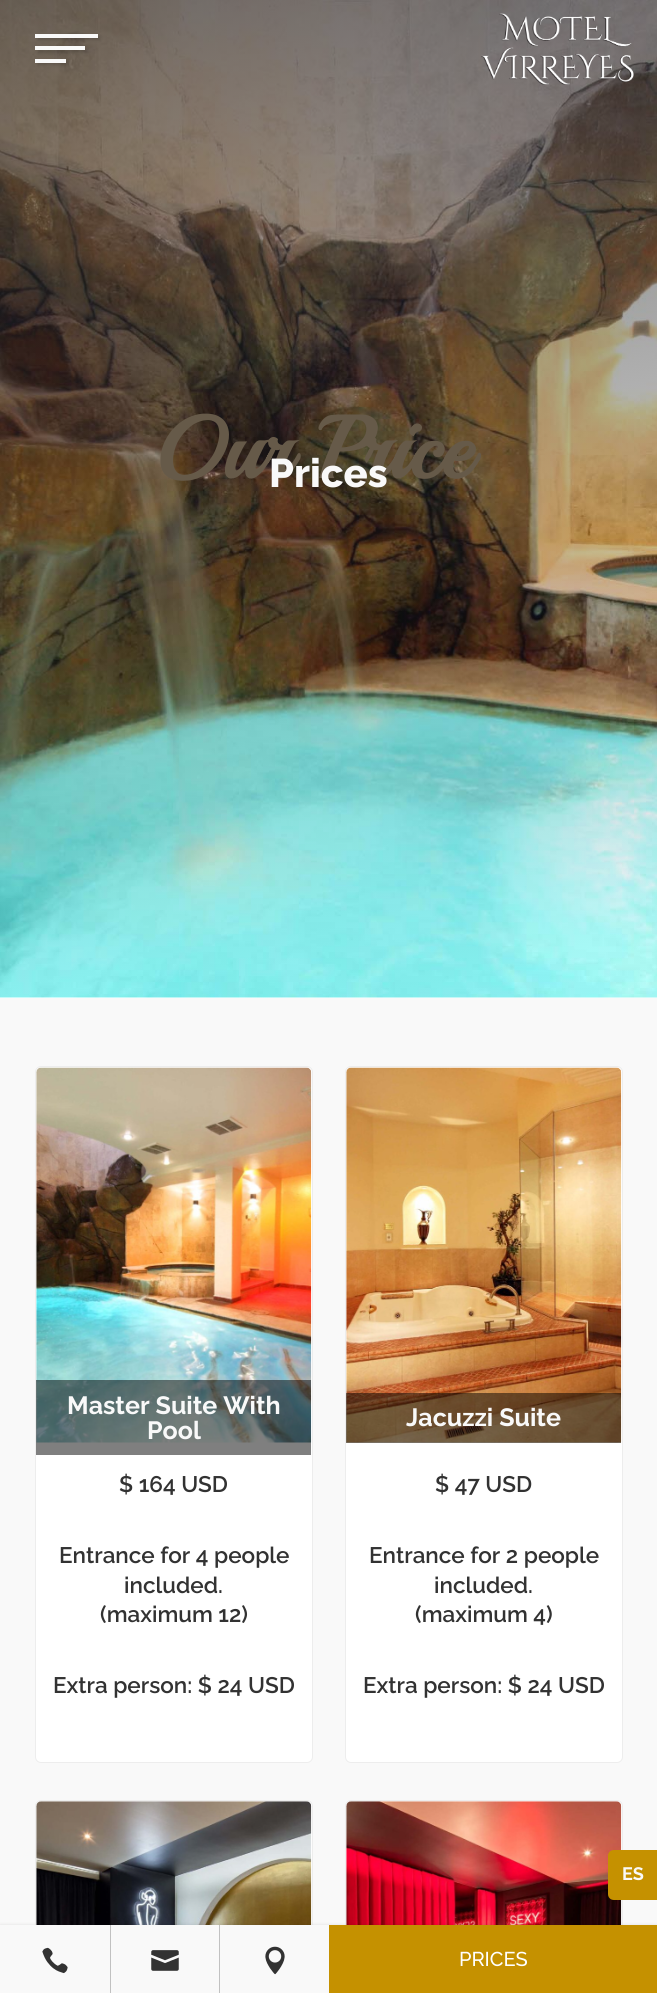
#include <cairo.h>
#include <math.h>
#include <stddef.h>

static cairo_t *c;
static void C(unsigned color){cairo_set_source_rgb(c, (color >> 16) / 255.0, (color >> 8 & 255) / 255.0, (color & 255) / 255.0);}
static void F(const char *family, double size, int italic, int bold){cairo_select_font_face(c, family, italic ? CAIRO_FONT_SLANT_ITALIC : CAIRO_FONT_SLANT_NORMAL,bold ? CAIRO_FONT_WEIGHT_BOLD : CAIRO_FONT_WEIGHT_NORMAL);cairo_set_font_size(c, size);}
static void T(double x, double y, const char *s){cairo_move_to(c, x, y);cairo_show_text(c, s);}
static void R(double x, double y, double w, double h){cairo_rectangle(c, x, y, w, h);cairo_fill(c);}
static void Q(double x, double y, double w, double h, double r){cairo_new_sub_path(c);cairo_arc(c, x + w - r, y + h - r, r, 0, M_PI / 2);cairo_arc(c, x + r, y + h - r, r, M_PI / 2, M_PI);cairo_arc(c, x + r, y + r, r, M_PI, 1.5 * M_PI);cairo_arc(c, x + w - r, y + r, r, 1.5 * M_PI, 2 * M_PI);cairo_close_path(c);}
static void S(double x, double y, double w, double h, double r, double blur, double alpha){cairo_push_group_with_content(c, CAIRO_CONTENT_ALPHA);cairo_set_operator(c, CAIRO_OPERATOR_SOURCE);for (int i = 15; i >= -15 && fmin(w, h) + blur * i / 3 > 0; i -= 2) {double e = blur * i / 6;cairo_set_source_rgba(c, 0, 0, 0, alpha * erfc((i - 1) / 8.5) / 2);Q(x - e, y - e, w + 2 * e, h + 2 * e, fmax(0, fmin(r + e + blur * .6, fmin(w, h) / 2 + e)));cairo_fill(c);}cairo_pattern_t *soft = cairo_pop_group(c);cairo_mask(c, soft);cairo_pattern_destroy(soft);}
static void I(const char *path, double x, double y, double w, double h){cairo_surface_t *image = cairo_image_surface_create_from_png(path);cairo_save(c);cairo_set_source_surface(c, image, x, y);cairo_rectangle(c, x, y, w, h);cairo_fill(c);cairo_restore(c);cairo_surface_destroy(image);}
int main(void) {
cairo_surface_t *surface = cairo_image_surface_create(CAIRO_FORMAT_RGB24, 657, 1993);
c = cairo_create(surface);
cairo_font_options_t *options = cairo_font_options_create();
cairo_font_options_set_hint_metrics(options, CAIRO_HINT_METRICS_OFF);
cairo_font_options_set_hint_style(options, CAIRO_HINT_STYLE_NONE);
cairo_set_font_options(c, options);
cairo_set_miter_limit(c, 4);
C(0xf9f9f9);
cairo_paint(c);
C(0xffffff);
R(0,997,657,1);
I("1.png",0,0,657,998);
F("Playball",87.5,0,1);
C(0x665a49);
T(154,478,"Our Price");
F("Raleway ExtraBold",40,0,0);
C(0xf9f9f9);
T(269,487,"Prices");
C(0xffffff);
Q(35.5,1066.5,277,696,5.5);
cairo_fill_preserve(c);
C(0xededed);
cairo_set_line_width(c,1);
cairo_stroke(c);
I("2.png",36,1067,276,376);
cairo_set_source_rgba(c,0,0,0,0.5);
R(36,1380,275,75);
F("Raleway",25,0,1);
C(0xf9f9f9);
T(67,1414,"Master Suite With");
T(147,1439,"Pool");
F("Raleway SemiBold",22.5,0,0);
C(0x323232);
T(119,1492,"$ 164 USD");
T(59,1563,"Entrance for 4 people");
T(124,1593,"included.");
T(100,1622,"(maximum 12)");
T(53,1693,"Extra person: $ 24 USD");
C(0xffffff);
Q(345.5,1066.5,277,696,5.5);
cairo_fill_preserve(c);
C(0xededed);
cairo_stroke(c);
I("3.png",346,1067,276,376);
cairo_set_source_rgba(c,0,0,0,0.5);
R(346,1393,275,50);
F("Raleway",25,0,1);
C(0xf9f9f9);
T(406,1426,"Jacuzzi Suite");
F("Raleway SemiBold",22.5,0,0);
C(0x323232);
T(435,1492,"$ 47 USD");
T(369,1563,"Entrance for 2 people");
T(434,1593,"included.");
T(415,1622,"(maximum 4)");
T(363,1693,"Extra person: $ 24 USD");
C(0xffffff);
Q(35.5,1800.5,277,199,5.5);
cairo_fill_preserve(c);
C(0xededed);
cairo_stroke(c);
I("4.png",36,1801,276,124);
C(0xffffff);
Q(345.5,1800.5,277,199,5.5);
cairo_fill_preserve(c);
C(0xededed);
cairo_stroke(c);
I("5.png",346,1801,276,124);
C(0x000000);
S(38,36,62,4,0,1.5,.15);
C(0xf9f9f9);
R(35,34,63,4);
C(0x000000);
S(38,49,50,4,0,1.5,.15);
C(0xf9f9f9);
R(35,46,50,4);
C(0x000000);
S(38,61,31,4,0,1.5,.15);
C(0xf9f9f9);
R(35,59,31,4);
I("6.png",481,13,153,72);
C(0xc59100);
cairo_new_path(c);
cairo_move_to(c,614,1850);
cairo_line_to(c,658,1850);
cairo_line_to(c,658,1900);
cairo_line_to(c,614,1900);
cairo_curve_to(c,610.5,1900,608,1897.5,608,1894);
cairo_line_to(c,608,1856);
cairo_curve_to(c,608,1852.5,610.5,1850,614,1850);
cairo_close_path(c);
cairo_fill(c);
F("Raleway",18,0,1);
C(0xf9f9f9);
T(622,1880,"ES");
C(0x000000);
S(0,1928,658,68,0,3,.3);
C(0xf9f9f9);
R(0,1925,329,68);
I("7.png",42,1947,26,27);
C(0xc1c1c1);
R(110,1925,1,68);
I("8.png",151,1950,28,21);
R(219,1925,1,68);
I("9.png",265,1946,20,29);
C(0xc59100);
R(329,1925,328,68);
F("Raleway Medium",20,0,0);
C(0xffffff);
T(459,1966,"PRICES");
cairo_surface_write_to_png(surface, "o.png");
cairo_font_options_destroy(options);
cairo_destroy(c);
cairo_surface_destroy(surface);
return 0;
}
